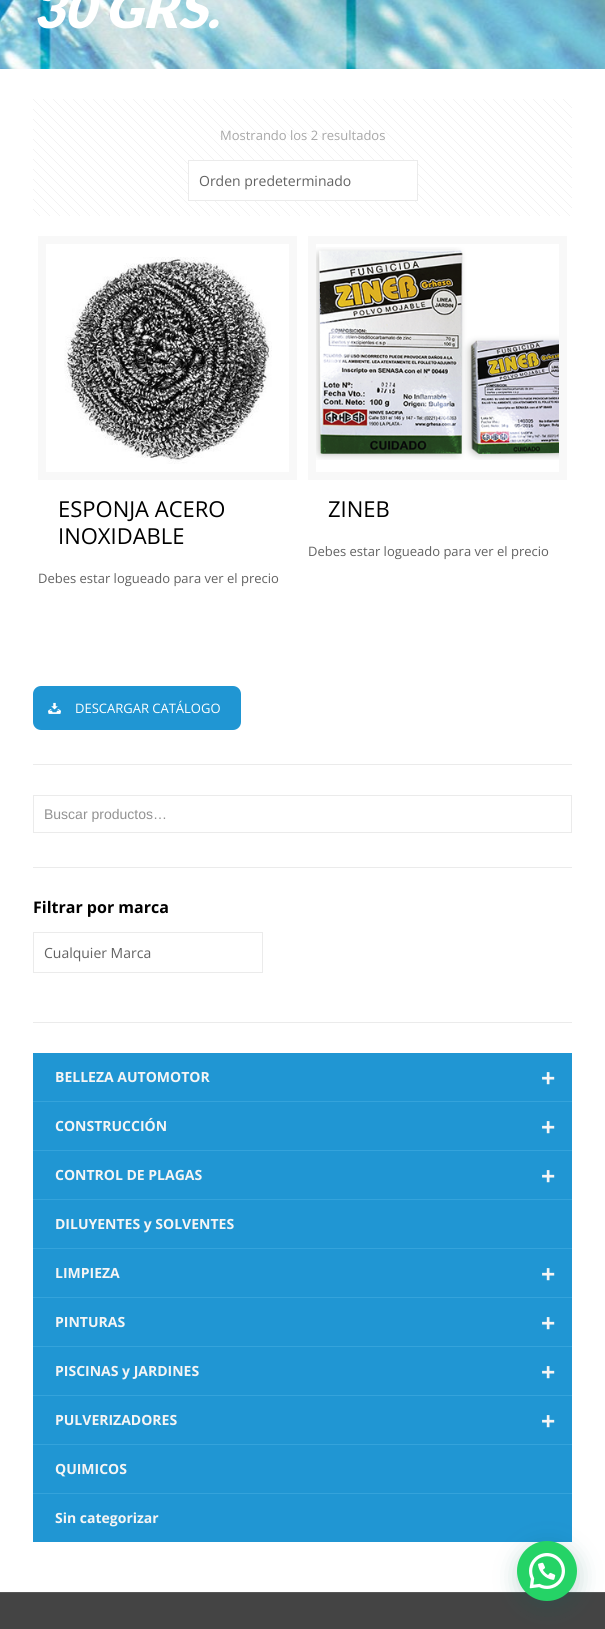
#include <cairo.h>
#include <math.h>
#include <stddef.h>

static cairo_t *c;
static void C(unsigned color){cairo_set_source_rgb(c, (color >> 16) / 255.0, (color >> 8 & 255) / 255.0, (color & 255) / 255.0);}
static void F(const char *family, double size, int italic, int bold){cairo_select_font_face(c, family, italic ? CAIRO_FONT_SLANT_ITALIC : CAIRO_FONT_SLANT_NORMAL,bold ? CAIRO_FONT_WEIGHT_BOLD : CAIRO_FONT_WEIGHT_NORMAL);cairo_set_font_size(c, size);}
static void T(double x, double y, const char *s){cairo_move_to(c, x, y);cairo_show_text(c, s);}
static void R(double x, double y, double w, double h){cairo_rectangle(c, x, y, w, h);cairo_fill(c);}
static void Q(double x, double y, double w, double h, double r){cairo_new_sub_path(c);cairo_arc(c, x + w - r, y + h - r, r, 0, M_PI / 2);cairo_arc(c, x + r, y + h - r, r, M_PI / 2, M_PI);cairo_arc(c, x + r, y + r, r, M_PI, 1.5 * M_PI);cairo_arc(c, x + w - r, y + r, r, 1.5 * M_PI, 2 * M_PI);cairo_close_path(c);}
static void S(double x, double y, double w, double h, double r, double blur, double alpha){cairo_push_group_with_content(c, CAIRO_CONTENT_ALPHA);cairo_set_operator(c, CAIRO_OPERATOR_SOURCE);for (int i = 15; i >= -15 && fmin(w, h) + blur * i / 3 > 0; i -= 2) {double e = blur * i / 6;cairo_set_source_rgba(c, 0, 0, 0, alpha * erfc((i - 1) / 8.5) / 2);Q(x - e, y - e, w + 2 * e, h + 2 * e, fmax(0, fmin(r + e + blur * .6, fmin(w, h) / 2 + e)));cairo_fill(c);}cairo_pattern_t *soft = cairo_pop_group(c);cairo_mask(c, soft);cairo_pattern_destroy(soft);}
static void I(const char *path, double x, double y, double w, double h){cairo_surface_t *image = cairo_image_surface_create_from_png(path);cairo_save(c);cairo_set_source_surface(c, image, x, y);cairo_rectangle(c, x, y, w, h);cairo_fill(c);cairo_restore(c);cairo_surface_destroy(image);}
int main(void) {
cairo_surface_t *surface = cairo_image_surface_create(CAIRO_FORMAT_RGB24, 605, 1629);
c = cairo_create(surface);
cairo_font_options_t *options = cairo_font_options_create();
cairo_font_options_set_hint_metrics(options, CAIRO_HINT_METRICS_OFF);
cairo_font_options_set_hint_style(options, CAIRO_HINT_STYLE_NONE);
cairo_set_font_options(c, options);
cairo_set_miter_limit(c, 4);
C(0xffffff);
cairo_paint(c);
I("1.png",0,0,605,69);
F("Lato Black",53,1,0);
C(0xffffff);
T(33,28,"30 GRS.");
I("2.png",33,99,539,117);
F("Open Sans",13,0,0);
C(0xa8a8a8);
T(220,140,"Mostrando los 2 resultados");
C(0xffffff);
cairo_rectangle(c,188.5,160.5,229,40);
cairo_fill_preserve(c);
C(0xebebeb);
cairo_set_line_width(c,1);
cairo_stroke(c);
F("Open Sans",14,0,0);
C(0x626262);
T(199,186,"Orden predeterminado");
cairo_rectangle(c,42,240,251,236);
C(0xf8f8f8);
cairo_set_line_width(c,8);
cairo_stroke(c);
I("3.png",64,257,208,207);
F("Open Sans",22,0,0);
C(0x000000);
T(58,517,"ESPONJA ACERO");
T(58,544,"INOXIDABLE");
F("Open Sans",13,0,0);
C(0x626262);
T(38,583,"Debes estar logueado para ver el precio");
cairo_rectangle(c,312,240,251,236);
C(0xf8f8f8);
cairo_stroke(c);
I("4.png",316,247,243,213);
F("Open Sans",22,0,0);
C(0x000000);
T(328,517,"ZINEB");
F("Open Sans",13,0,0);
C(0x626262);
T(308,556,"Debes estar logueado para ver el precio");
C(0x2096d3);
Q(33,686,208,44,8);
cairo_fill(c);
I("5.png",48,702,13,12);
C(0xffffff);
T(75,713,"DESCARGAR CATÁLOGO");
C(0xebebeb);
R(33,764,539,1);
cairo_rectangle(c,33.5,795.5,538,37);
cairo_set_line_width(c,1);
cairo_stroke(c);
F("Liberation Sans",14,0,0);
C(0x929292);
T(44,819,"Buscar productos…");
C(0xebebeb);
R(33,867,539,1);
F("Open Sans",16,0,1);
C(0x000000);
T(33,913,"Filtrar por marca");
cairo_rectangle(c,33.5,932.5,229,40);
C(0xebebeb);
cairo_stroke(c);
F("Open Sans",14,0,0);
C(0x626262);
T(44,958,"Cualquier Marca");
C(0xebebeb);
R(33,1022,539,1);
C(0x2096d3);
R(33,1053,539,48);
C(0x34a3db);
R(33,1101,539,1);
F("Open Sans",14,0,1);
C(0xf5f5f5);
T(55,1082,"BELLEZA AUTOMOTOR");
F("Open Sans",25,0,1);
T(541,1087,"+");
C(0x2096d3);
R(33,1102,539,48);
C(0x34a3db);
R(33,1150,539,1);
F("Open Sans",14,0,1);
C(0xf5f5f5);
T(55,1131,"CONSTRUCCIÓN");
F("Open Sans",25,0,1);
T(541,1136,"+");
C(0x2096d3);
R(33,1151,539,48);
C(0x34a3db);
R(33,1199,539,1);
F("Open Sans",14,0,1);
C(0xf5f5f5);
T(55,1180,"CONTROL DE PLAGAS");
F("Open Sans",25,0,1);
T(541,1185,"+");
C(0x2096d3);
R(33,1200,539,48);
C(0x34a3db);
R(33,1248,539,1);
F("Open Sans",14,0,1);
C(0xf5f5f5);
T(55,1229,"DILUYENTES y SOLVENTES");
C(0x2096d3);
R(33,1249,539,48);
C(0x34a3db);
R(33,1297,539,1);
C(0xf5f5f5);
T(55,1278,"LIMPIEZA");
F("Open Sans",25,0,1);
T(541,1283,"+");
C(0x2096d3);
R(33,1298,539,48);
C(0x34a3db);
R(33,1346,539,1);
F("Open Sans",14,0,1);
C(0xf5f5f5);
T(55,1327,"PINTURAS");
F("Open Sans",25,0,1);
T(541,1332,"+");
C(0x2096d3);
R(33,1347,539,48);
C(0x34a3db);
R(33,1395,539,1);
F("Open Sans",14,0,1);
C(0xf5f5f5);
T(55,1376,"PISCINAS y JARDINES");
F("Open Sans",25,0,1);
T(541,1381,"+");
C(0x2096d3);
R(33,1396,539,48);
C(0x34a3db);
R(33,1444,539,1);
F("Open Sans",14,0,1);
C(0xf5f5f5);
T(55,1425,"PULVERIZADORES");
F("Open Sans",25,0,1);
T(541,1430,"+");
C(0x2096d3);
R(33,1445,539,48);
C(0x34a3db);
R(33,1493,539,1);
F("Open Sans",14,0,1);
C(0xf5f5f5);
T(55,1474,"QUIMICOS");
C(0x2096d3);
R(33,1494,539,48);
C(0xf5f5f5);
T(55,1523,"Sin categorizar");
C(0x444444);
R(0,1593,605,36);
C(0x575757);
R(0,1592,605,1);
C(0x075e54);
S(518,1547,60,60,30,12,.24);
C(0x25d366);
cairo_arc(c,547,1571,30,0,2 * M_PI);
cairo_fill(c);
I("6.png",529,1553,36,36);
cairo_surface_write_to_png(surface, "o.png");
cairo_font_options_destroy(options);
cairo_destroy(c);
cairo_surface_destroy(surface);
return 0;
}
